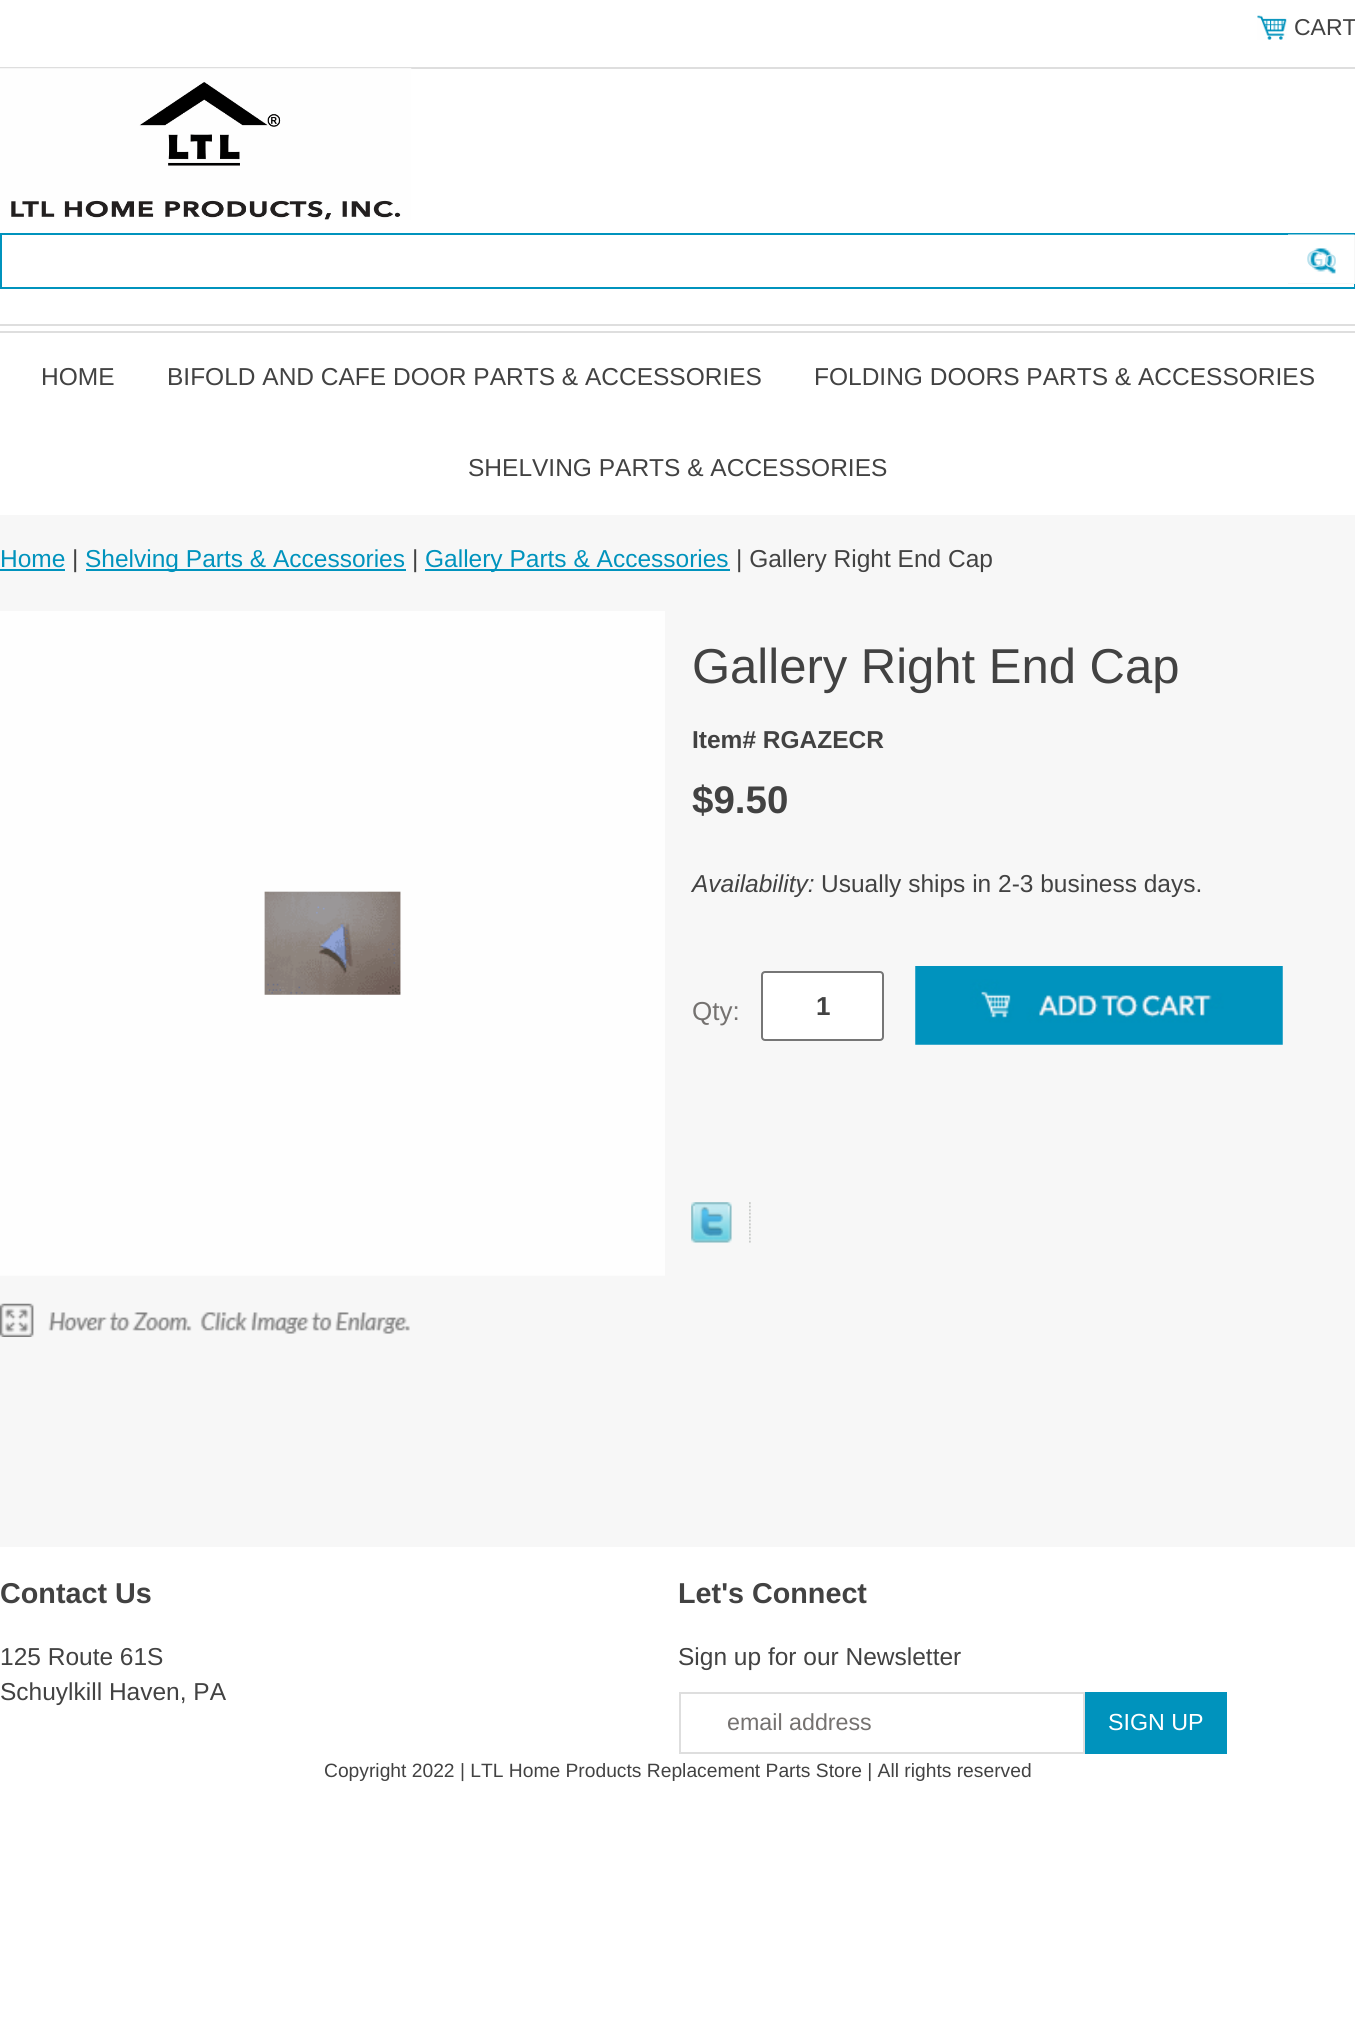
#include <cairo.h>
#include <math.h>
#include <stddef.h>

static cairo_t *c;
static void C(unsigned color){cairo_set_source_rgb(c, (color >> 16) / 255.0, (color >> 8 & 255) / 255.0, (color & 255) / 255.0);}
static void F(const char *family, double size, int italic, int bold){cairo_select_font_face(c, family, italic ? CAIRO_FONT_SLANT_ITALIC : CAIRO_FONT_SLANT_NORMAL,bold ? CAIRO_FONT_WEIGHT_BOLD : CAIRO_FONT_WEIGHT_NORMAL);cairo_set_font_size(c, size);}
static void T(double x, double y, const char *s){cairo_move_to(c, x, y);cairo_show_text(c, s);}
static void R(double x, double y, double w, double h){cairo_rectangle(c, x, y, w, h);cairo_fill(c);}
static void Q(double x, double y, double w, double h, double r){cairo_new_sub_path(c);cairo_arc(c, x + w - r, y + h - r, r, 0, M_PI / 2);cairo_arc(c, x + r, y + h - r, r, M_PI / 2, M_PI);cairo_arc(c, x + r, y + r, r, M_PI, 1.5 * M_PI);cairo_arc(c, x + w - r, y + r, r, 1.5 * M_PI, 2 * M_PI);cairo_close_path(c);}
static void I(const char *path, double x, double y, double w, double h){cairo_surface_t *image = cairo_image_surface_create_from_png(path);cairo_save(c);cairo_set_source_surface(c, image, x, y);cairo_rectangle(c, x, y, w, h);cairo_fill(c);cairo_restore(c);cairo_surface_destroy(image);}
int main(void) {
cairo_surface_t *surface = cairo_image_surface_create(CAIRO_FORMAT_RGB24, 1355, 2029);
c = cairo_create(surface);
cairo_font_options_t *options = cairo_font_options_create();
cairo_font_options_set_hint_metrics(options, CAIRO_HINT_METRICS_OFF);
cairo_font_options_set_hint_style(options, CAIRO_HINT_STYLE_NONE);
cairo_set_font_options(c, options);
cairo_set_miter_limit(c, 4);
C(0xffffff);
cairo_paint(c);
I("1.png",1257,15,30,25);
F("Liberation Sans",23,0,0);
C(0x424242);
T(1294,35,"CART");
C(0xdedede);
R(0,67,1355,2);
R(0,324,1355,2);
I("2.png",0,68,412,152);
cairo_rectangle(c,1,234,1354,54);
C(0x0093bd);
cairo_stroke(c);
C(0xefefef);
R(1288,235,67,49);
I("3.png",1288,234,67,50);
F("Liberation Sans",23.25,0,0);
C(0xb9e1ed);
T(1306,267,"Go");
C(0xdedede);
R(0,331,1355,2);
F("Liberation Sans",24.5,0,0);
C(0x424242);
T(41,385,"HOME");
T(167,385,"BIFOLD AND CAFE DOOR PARTS & ACCESSORIES");
T(814,385,"FOLDING DOORS PARTS & ACCESSORIES");
T(468,476,"SHELVING PARTS & ACCESSORIES");
C(0xf7f7f7);
R(0,515,1355,1032);
C(0x0093bd);
T(0,567,"Home");
R(0,569,65,2);
C(0x424242);
T(72,567,"|");
C(0x0093bd);
R(86,569,320,2);
T(85,567,"Shelving Parts & Accessories");
C(0x424242);
T(412,567,"|");
C(0x0093bd);
R(425,569,305,2);
T(425,567,"Gallery Parts & Accessories");
C(0x424242);
T(736,567,"| Gallery Right End Cap");
I("4.png",0,1303,410,34);
I("5.png",0,611,665,665);
F("Liberation Sans",49,0,0);
T(692,683,"Gallery Right End Cap");
F("Liberation Sans",24.5,0,1);
T(692,748,"Item# RGAZECR");
F("Liberation Sans",38.5,0,1);
T(692,813,"$9.50");
F("Liberation Sans",24.5,1,0);
T(692,892,"Availability:");
F("Liberation Sans",24.5,0,0);
T(821,892,"Usually ships in 2-3 business days.");
F("Liberation Sans",26,0,0);
C(0x757270);
T(692,1020,"Qty:");
C(0xffffff);
Q(762,972,121,68,3);
cairo_fill_preserve(c);
C(0x767676);
cairo_stroke(c);
F("Liberation Sans",26,0,1);
C(0x424242);
T(816,1015,"1");
I("6.png",915,966,368,79);
I("7.png",691,1202,41,41);
I("8.png",749,1202,2,41);
F("Liberation Sans",28.75,0,1);
T(0,1603,"Contact Us");
F("Liberation Sans",24.5,0,0);
T(0,1665,"125 Route 61S");
T(0,1700,"Schuylkill Haven, PA");
F("Liberation Sans",28.75,0,1);
T(678,1603,"Let's Connect");
F("Liberation Sans",24.5,0,0);
T(678,1665,"Sign up for our Newsletter");
cairo_rectangle(c,680,1693,404,60);
C(0xdedede);
cairo_stroke(c);
F("Liberation Sans",23.25,0,0);
C(0x757270);
T(727,1730,"email address");
C(0x0093bd);
R(1085,1692,142,62);
C(0xffffff);
T(1108,1730,"SIGN UP");
F("Liberation Sans",19.25,0,0);
C(0x424242);
T(324,1777,"Copyright 2022 | LTL Home Products Replacement Parts Store | All rights reserved");
cairo_surface_write_to_png(surface, "o.png");
cairo_font_options_destroy(options);
cairo_destroy(c);
cairo_surface_destroy(surface);
return 0;
}
